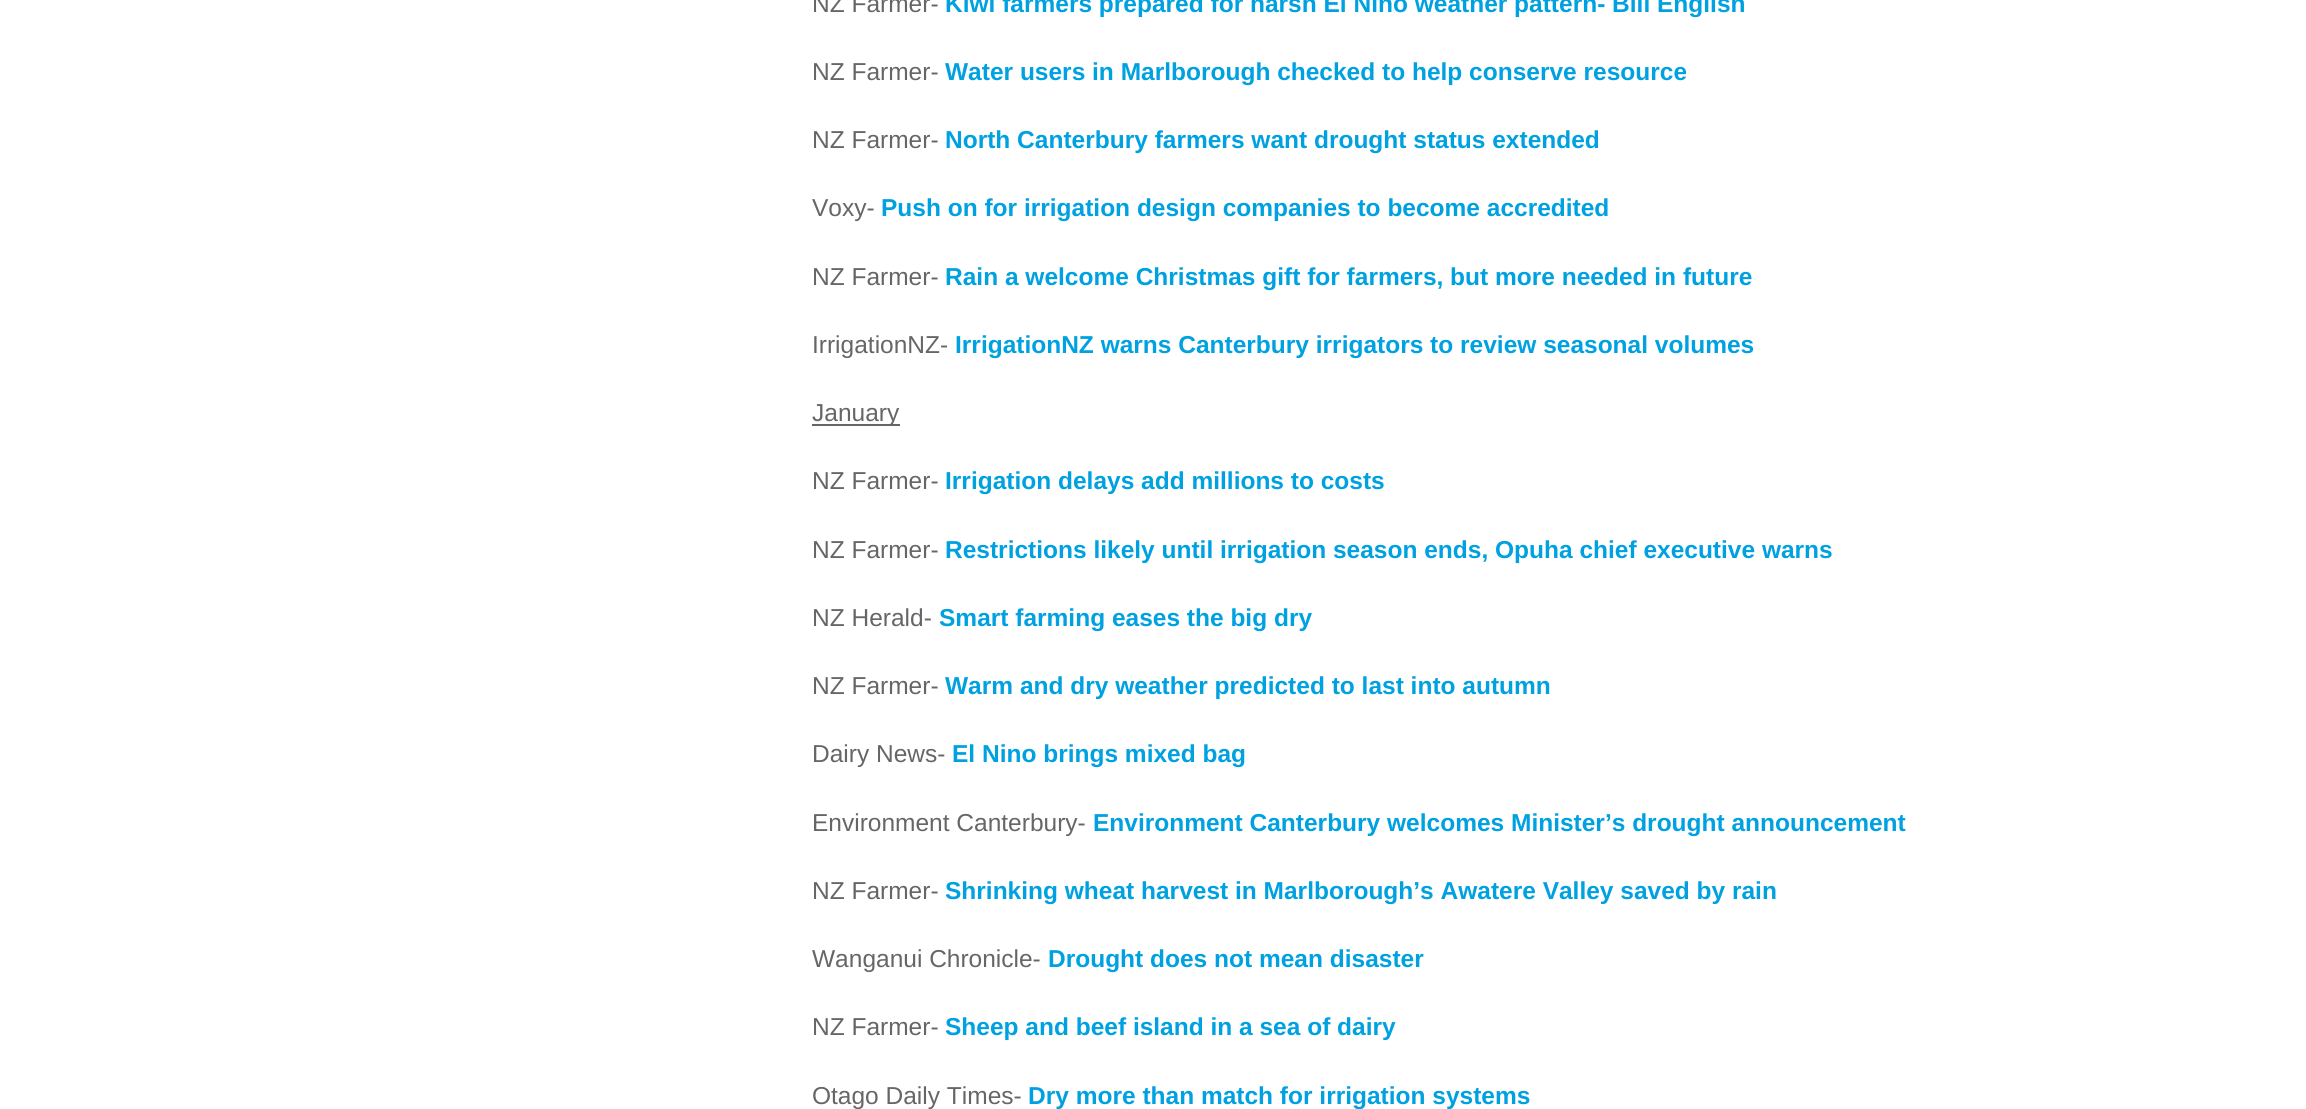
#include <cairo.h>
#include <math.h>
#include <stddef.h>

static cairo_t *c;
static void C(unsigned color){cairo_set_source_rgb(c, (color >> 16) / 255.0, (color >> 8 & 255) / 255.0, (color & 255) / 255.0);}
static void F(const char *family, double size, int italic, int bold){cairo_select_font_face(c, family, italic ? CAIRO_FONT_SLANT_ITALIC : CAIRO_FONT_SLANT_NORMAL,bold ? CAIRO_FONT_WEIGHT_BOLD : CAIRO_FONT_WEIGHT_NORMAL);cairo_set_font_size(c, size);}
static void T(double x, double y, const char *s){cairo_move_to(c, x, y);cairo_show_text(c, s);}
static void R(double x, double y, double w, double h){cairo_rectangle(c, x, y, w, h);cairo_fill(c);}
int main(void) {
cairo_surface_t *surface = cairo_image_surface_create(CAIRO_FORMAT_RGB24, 2306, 1109);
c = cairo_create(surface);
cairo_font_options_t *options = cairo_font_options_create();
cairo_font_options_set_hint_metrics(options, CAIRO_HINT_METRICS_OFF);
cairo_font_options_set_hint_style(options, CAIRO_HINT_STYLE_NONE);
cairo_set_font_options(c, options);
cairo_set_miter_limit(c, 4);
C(0xffffff);
cairo_paint(c);
F("Liberation Sans",24.5,0,0);
C(0x666666);
T(812,12,"NZ Farmer-");
F("Liberation Sans",24.5,0,1);
C(0x00a1e1);
T(945,12,"Kiwi farmers prepared for harsh El Nino weather pattern- Bill English");
F("Liberation Sans",24.5,0,0);
C(0x666666);
T(812,80,"NZ Farmer-");
F("Liberation Sans",24.5,0,1);
C(0x00a1e1);
T(945,80,"Water users in Marlborough checked to help conserve resource");
F("Liberation Sans",24.5,0,0);
C(0x666666);
T(812,148,"NZ Farmer-");
F("Liberation Sans",24.5,0,1);
C(0x00a1e1);
T(945,148,"North Canterbury farmers want drought status extended");
F("Liberation Sans",24.5,0,0);
C(0x666666);
T(812,216,"Voxy-");
F("Liberation Sans",24.5,0,1);
C(0x00a1e1);
T(881,216,"Push on for irrigation design companies to become accredited");
F("Liberation Sans",24.5,0,0);
C(0x666666);
T(812,285,"NZ Farmer-");
F("Liberation Sans",24.5,0,1);
C(0x00a1e1);
T(945,285,"Rain a welcome Christmas gift for farmers, but more needed in future");
F("Liberation Sans",24.5,0,0);
C(0x666666);
T(812,353,"IrrigationNZ-");
F("Liberation Sans",24.5,0,1);
C(0x00a1e1);
T(955,353,"IrrigationNZ warns Canterbury irrigators to review seasonal volumes");
C(0x666666);
R(812,424,88,2);
F("Liberation Sans",24.5,0,0);
T(812,421,"January");
T(812,489,"NZ Farmer-");
F("Liberation Sans",24.5,0,1);
C(0x00a1e1);
T(945,489,"Irrigation delays add millions to costs");
F("Liberation Sans",24.5,0,0);
C(0x666666);
T(812,558,"NZ Farmer-");
F("Liberation Sans",24.5,0,1);
C(0x00a1e1);
T(945,558,"Restrictions likely until irrigation season ends, Opuha chief executive warns");
F("Liberation Sans",24.5,0,0);
C(0x666666);
T(812,626,"NZ Herald-");
F("Liberation Sans",24.5,0,1);
C(0x00a1e1);
T(939,626,"Smart farming eases the big dry");
F("Liberation Sans",24.5,0,0);
C(0x666666);
T(812,694,"NZ Farmer-");
F("Liberation Sans",24.5,0,1);
C(0x00a1e1);
T(945,694,"Warm and dry weather predicted to last into autumn");
F("Liberation Sans",24.5,0,0);
C(0x666666);
T(812,762,"Dairy News-");
F("Liberation Sans",24.5,0,1);
C(0x00a1e1);
T(952,762,"El Nino brings mixed bag");
F("Liberation Sans",24.5,0,0);
C(0x666666);
T(812,831,"Environment Canterbury-");
F("Liberation Sans",24.5,0,1);
C(0x00a1e1);
T(1093,831,"Environment Canterbury welcomes Minister’s drought announcement");
F("Liberation Sans",24.5,0,0);
C(0x666666);
T(812,899,"NZ Farmer-");
F("Liberation Sans",24.5,0,1);
C(0x00a1e1);
T(945,899,"Shrinking wheat harvest in Marlborough’s Awatere Valley saved by rain");
F("Liberation Sans",24.5,0,0);
C(0x666666);
T(812,967,"Wanganui Chronicle-");
F("Liberation Sans",24.5,0,1);
C(0x00a1e1);
T(1048,967,"Drought does not mean disaster");
F("Liberation Sans",24.5,0,0);
C(0x666666);
T(812,1035,"NZ Farmer-");
F("Liberation Sans",24.5,0,1);
C(0x00a1e1);
T(945,1035,"Sheep and beef island in a sea of dairy");
F("Liberation Sans",24.5,0,0);
C(0x666666);
T(812,1104,"Otago Daily Times-");
F("Liberation Sans",24.5,0,1);
C(0x00a1e1);
T(1028,1104,"Dry more than match for irrigation systems");
cairo_surface_write_to_png(surface, "o.png");
cairo_font_options_destroy(options);
cairo_destroy(c);
cairo_surface_destroy(surface);
return 0;
}
